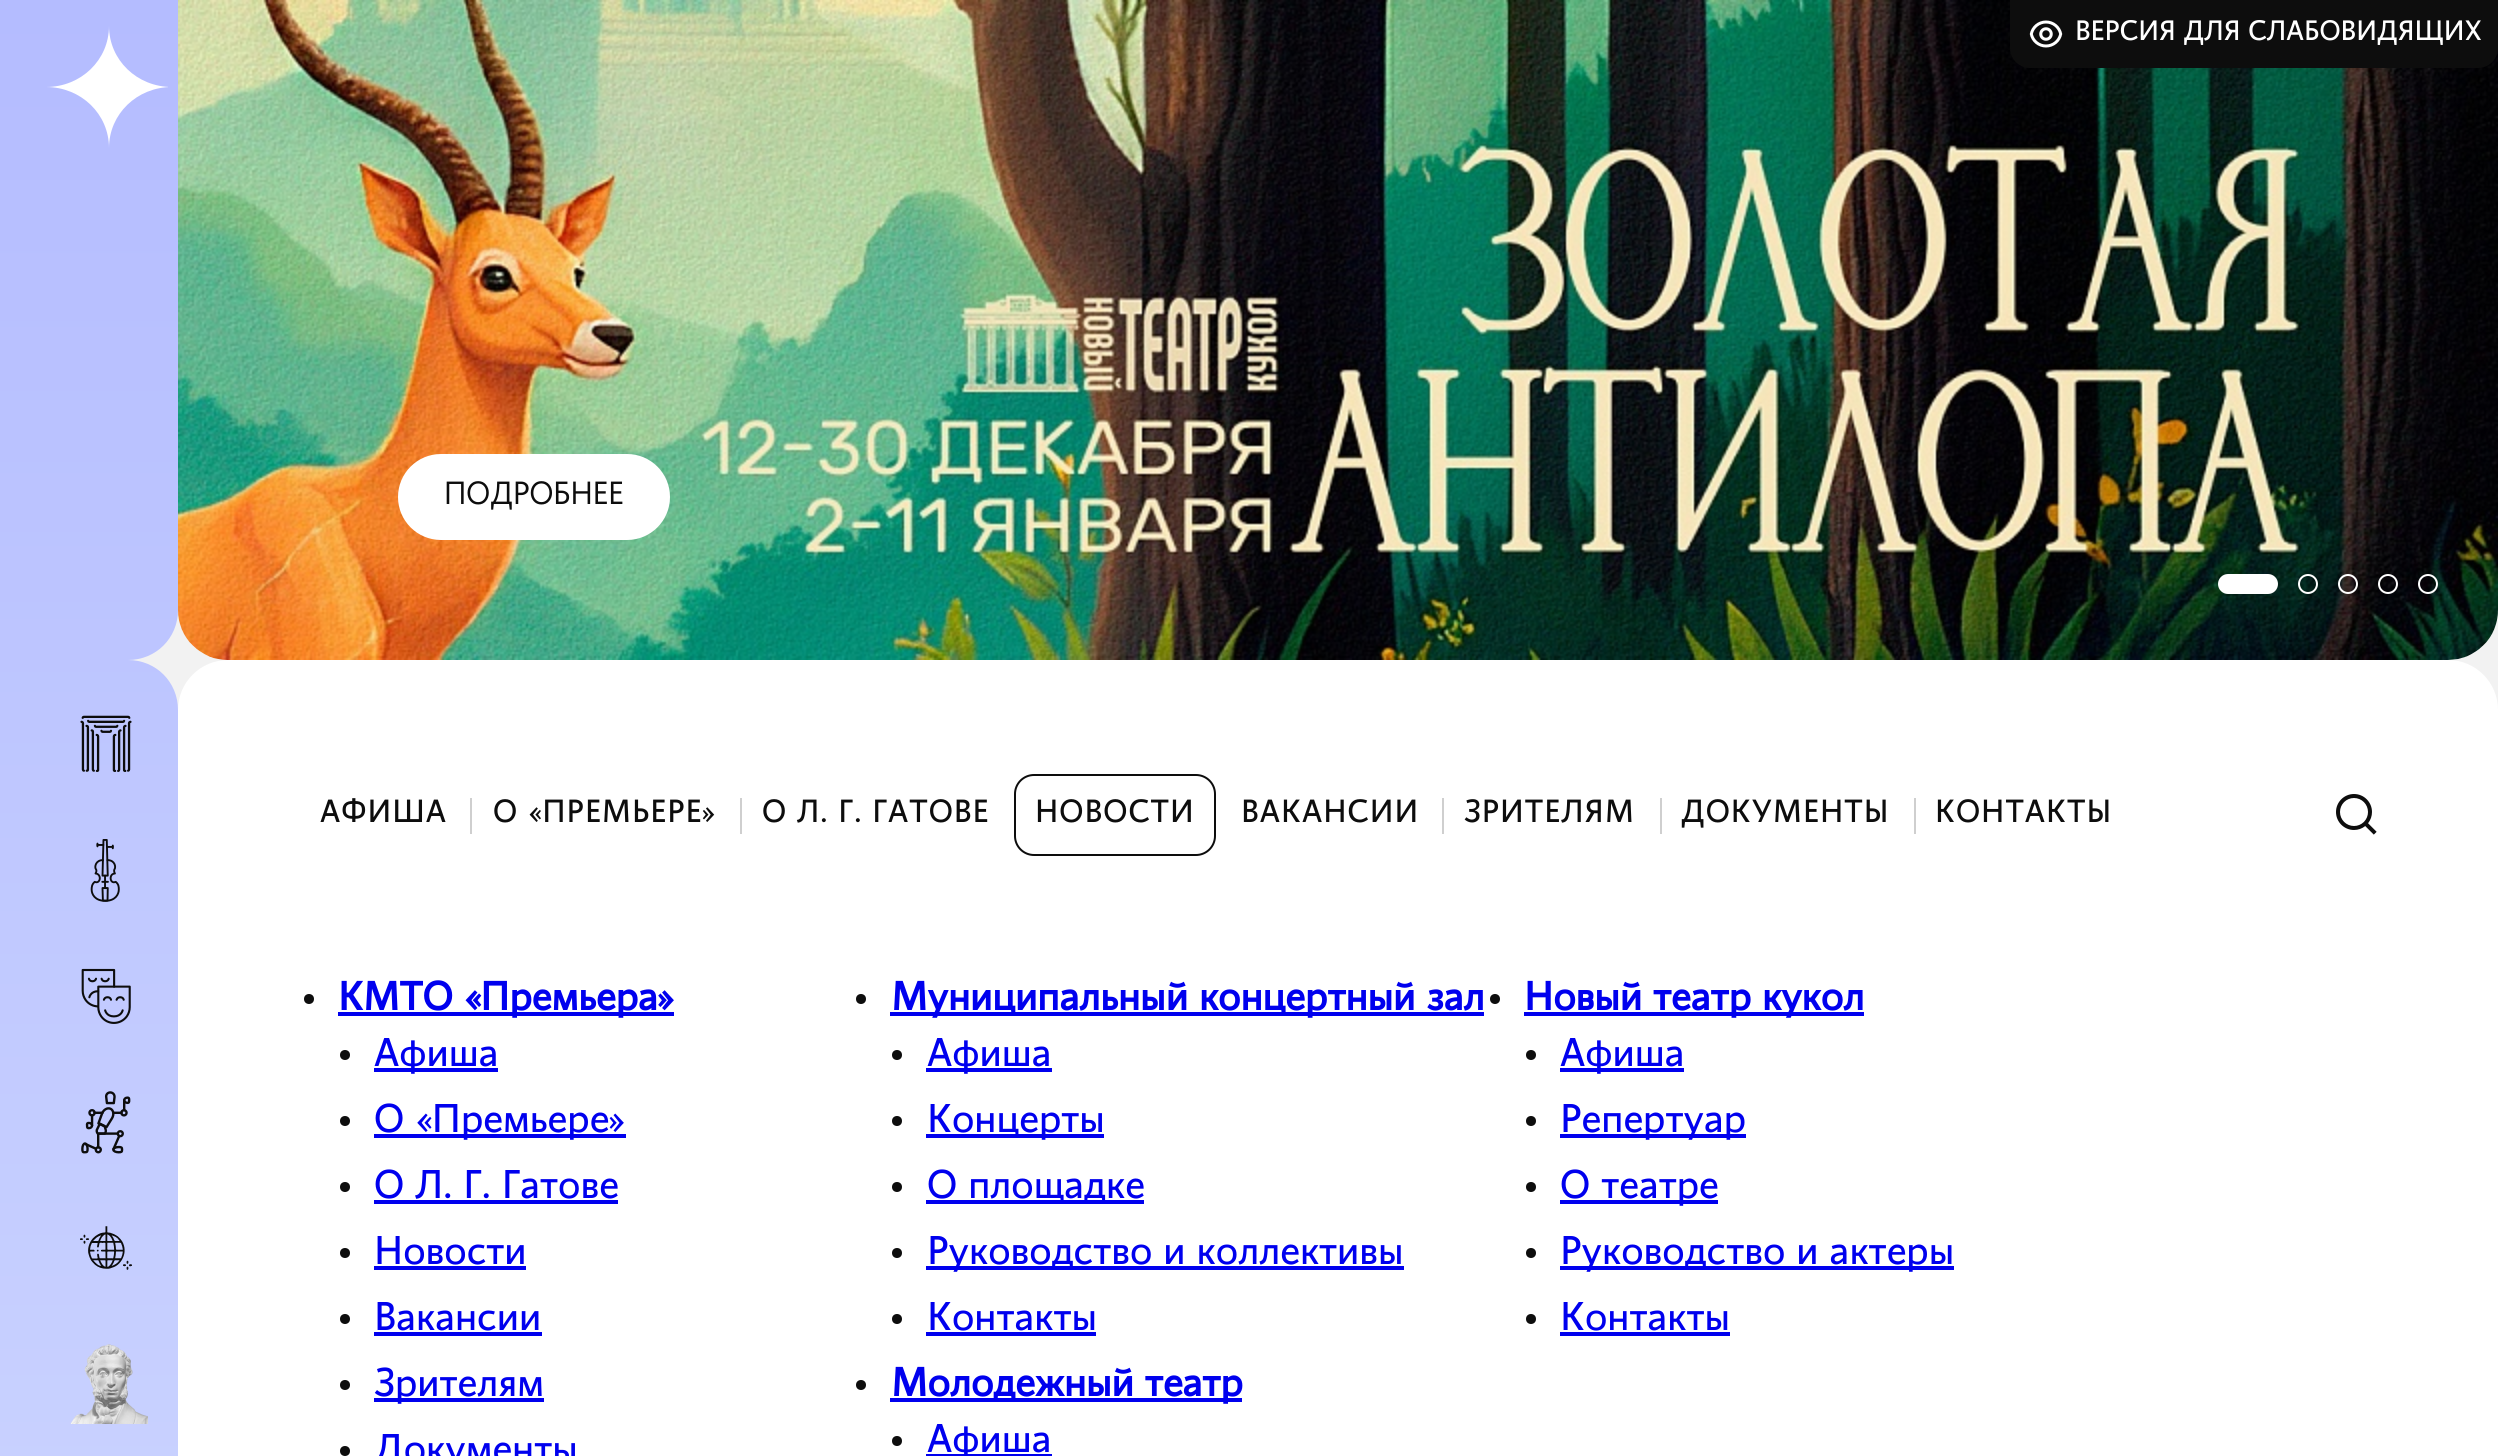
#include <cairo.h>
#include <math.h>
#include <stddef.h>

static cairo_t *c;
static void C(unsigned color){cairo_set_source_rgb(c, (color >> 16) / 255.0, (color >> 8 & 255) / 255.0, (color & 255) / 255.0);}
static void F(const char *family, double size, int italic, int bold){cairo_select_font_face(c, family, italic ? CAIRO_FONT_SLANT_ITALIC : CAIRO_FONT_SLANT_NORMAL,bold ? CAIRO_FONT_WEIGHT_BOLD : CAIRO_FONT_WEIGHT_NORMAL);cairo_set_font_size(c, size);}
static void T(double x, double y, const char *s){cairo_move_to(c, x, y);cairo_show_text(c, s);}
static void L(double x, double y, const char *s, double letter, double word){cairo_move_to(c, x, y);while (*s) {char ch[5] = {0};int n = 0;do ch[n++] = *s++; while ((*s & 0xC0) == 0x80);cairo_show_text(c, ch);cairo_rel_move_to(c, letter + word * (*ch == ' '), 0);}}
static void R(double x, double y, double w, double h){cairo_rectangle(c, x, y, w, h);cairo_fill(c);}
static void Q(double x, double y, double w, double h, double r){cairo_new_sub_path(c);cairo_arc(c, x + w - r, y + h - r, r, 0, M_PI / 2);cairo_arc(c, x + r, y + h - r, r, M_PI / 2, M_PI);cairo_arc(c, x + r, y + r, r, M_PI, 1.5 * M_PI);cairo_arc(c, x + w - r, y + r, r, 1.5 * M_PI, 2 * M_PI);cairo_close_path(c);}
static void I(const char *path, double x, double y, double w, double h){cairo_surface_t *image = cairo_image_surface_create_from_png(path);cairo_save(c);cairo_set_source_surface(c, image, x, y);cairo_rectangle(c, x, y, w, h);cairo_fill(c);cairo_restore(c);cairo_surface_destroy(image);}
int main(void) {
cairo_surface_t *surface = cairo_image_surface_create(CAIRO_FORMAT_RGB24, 2498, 1456);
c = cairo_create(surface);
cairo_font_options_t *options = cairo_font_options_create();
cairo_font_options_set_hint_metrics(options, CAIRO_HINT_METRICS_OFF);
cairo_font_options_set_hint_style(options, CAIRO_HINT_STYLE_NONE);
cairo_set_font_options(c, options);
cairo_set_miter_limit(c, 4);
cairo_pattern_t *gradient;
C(0xffffff);
cairo_paint(c);
gradient = cairo_pattern_create_linear(1249,0,1249,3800);
cairo_pattern_add_color_stop_rgba(gradient,0,0.706,0.737,1,1);
cairo_pattern_add_color_stop_rgba(gradient,1,0.91,0.949,1,1);
cairo_set_source(c,gradient);
cairo_pattern_destroy(gradient);
R(0,0,178,1456);
cairo_save(c);
cairo_rectangle(c,46,26,122,122);
cairo_clip(c);
C(0xffffff);
cairo_new_path(c);
cairo_move_to(c,172,87);
cairo_curve_to(c,137,87,109,114,109,148);
cairo_curve_to(c,109,114,81,87,46,87);
cairo_curve_to(c,81,87,109,60,109,26);
cairo_curve_to(c,109,60,137,87,172,87);
cairo_close_path(c);
cairo_fill(c);
cairo_restore(c);
I("1.png",80,715,52,57);
I("2.png",90,839,30,63);
I("3.png",81,968,50,56);
I("4.png",81,1091,50,63);
I("5.png",80,1226,52,44);
I("6.png",70,1344,78,80);
C(0xf2f2f2);
R(178,610,2320,100);
I("8.png",178,0,2320,660);
C(0x0d0d0d);
cairo_new_path(c);
cairo_move_to(c,2010,0);
cairo_line_to(c,2498,0);
cairo_line_to(c,2498,48);
cairo_curve_to(c,2498,59,2489,68,2478,68);
cairo_line_to(c,2030,68);
cairo_curve_to(c,2019,68,2010,59,2010,48);
cairo_close_path(c);
cairo_fill(c);
I("7.png",2029,20,34,28);
F("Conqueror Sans",28,0,0);
C(0xffffff);
T(2075,40,"ВЕРСИЯ ДЛЯ СЛАБОВИДЯЩИХ");
Q(399,455,270,84,42);
cairo_fill_preserve(c);
cairo_stroke(c);
F("Conqueror Sans Light",32,0,0);
C(0x0d0d0d);
T(444,504,"ПОДРОБНЕЕ");
C(0xffffff);
Q(2219,575,58,18,9);
cairo_fill_preserve(c);
cairo_stroke(c);
cairo_arc(c,2308,584,9,0,2 * M_PI);
cairo_stroke(c);
cairo_arc(c,2348,584,9,0,2 * M_PI);
cairo_stroke(c);
cairo_arc(c,2388,584,9,0,2 * M_PI);
cairo_stroke(c);
cairo_arc(c,2428,584,9,0,2 * M_PI);
cairo_stroke(c);
cairo_save(c);
cairo_rectangle(c,128,610,50,100);
cairo_clip(c);
C(0xf2f2f2);
cairo_new_path(c);
cairo_move_to(c,178,610);
cairo_curve_to(c,178,638,156,660,128,660);
cairo_curve_to(c,156,660,178,682,178,710);
cairo_curve_to(c,178,682,200,660,228,660);
cairo_curve_to(c,200,660,178,638,178,610);
cairo_close_path(c);
cairo_fill(c);
cairo_restore(c);
Q(178,660,2320,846,50);
cairo_fill(c);
F("Conqueror Sans",32,0,0);
C(0x0d0d0d);
L(320,822,"АФИША",1,0);
C(0xcfcfcf);
R(470,798,2,36);
C(0x0d0d0d);
L(493,822,"О «ПРЕМЬЕРЕ»",1,0);
C(0xcfcfcf);
R(740,798,2,36);
C(0x0d0d0d);
L(762,822,"О Л. Г. ГАТОВЕ",1,0);
Q(1015,775,200,80,19);
cairo_stroke(c);
L(1035,822,"НОВОСТИ",1,0);
L(1241,822,"ВАКАНСИИ",1,0);
C(0xcfcfcf);
R(1442,798,2,36);
C(0x0d0d0d);
L(1464,822,"ЗРИТЕЛЯМ",1,0);
C(0xcfcfcf);
R(1660,798,2,36);
C(0x0d0d0d);
L(1681,822,"ДОКУМЕНТЫ",1,0);
C(0xcfcfcf);
R(1914,798,2,36);
C(0x0d0d0d);
L(1935,822,"КОНТАКТЫ",1,0);
I("9.png",2336,794,41,41);
cairo_arc(c,309,999,5,0,2 * M_PI);
cairo_fill(c);
C(0x0000ee);
R(338,1012,336,4);
F("Conqueror Sans",40,0,1);
T(338,1010,"КМТО «Премьера»");
C(0x0d0d0d);
cairo_new_path(c);
cairo_arc(c,345,1055,5,0,2 * M_PI);
cairo_fill(c);
C(0x0000ee);
R(374,1068,124,4);
F("Conqueror Sans",40,0,0);
T(374,1066,"Афиша");
C(0x0d0d0d);
cairo_new_path(c);
cairo_arc(c,345,1121,5,0,2 * M_PI);
cairo_fill(c);
C(0x0000ee);
R(374,1134,252,4);
T(374,1132,"О «Премьере»");
C(0x0d0d0d);
cairo_new_path(c);
cairo_arc(c,345,1187,5,0,2 * M_PI);
cairo_fill(c);
C(0x0000ee);
T(374,1198,"О Л. Г. Гатове");
R(374,1200,244,4);
C(0x0d0d0d);
cairo_new_path(c);
cairo_arc(c,345,1253,5,0,2 * M_PI);
cairo_fill(c);
C(0x0000ee);
T(374,1264,"Новости");
R(374,1266,152,4);
C(0x0d0d0d);
cairo_new_path(c);
cairo_arc(c,345,1319,5,0,2 * M_PI);
cairo_fill(c);
C(0x0000ee);
T(374,1330,"Вакансии");
R(374,1332,168,4);
C(0x0d0d0d);
cairo_new_path(c);
cairo_arc(c,345,1385,5,0,2 * M_PI);
cairo_fill(c);
C(0x0000ee);
R(374,1398,170,4);
T(374,1396,"Зрителям");
C(0x0d0d0d);
cairo_new_path(c);
cairo_arc(c,345,1451,5,0,2 * M_PI);
cairo_fill(c);
C(0x0000ee);
T(374,1462,"Документы");
C(0x0d0d0d);
cairo_new_path(c);
cairo_arc(c,861,999,5,0,2 * M_PI);
cairo_fill(c);
C(0x0000ee);
R(890,1012,594,4);
F("Conqueror Sans",40,0,1);
T(891,1010,"Муниципальный концертный зал");
C(0x0d0d0d);
cairo_new_path(c);
cairo_arc(c,897,1055,5,0,2 * M_PI);
cairo_fill(c);
C(0x0000ee);
R(926,1068,126,4);
F("Conqueror Sans",40,0,0);
T(927,1066,"Афиша");
C(0x0d0d0d);
cairo_new_path(c);
cairo_arc(c,897,1121,5,0,2 * M_PI);
cairo_fill(c);
C(0x0000ee);
R(926,1134,178,4);
T(927,1132,"Концерты");
C(0x0d0d0d);
cairo_new_path(c);
cairo_arc(c,897,1187,5,0,2 * M_PI);
cairo_fill(c);
C(0x0000ee);
R(926,1200,218,4);
T(927,1198,"О площадке");
C(0x0d0d0d);
cairo_new_path(c);
cairo_arc(c,897,1253,5,0,2 * M_PI);
cairo_fill(c);
C(0x0000ee);
R(926,1266,478,4);
T(927,1264,"Руководство и коллективы");
C(0x0d0d0d);
cairo_new_path(c);
cairo_arc(c,897,1319,5,0,2 * M_PI);
cairo_fill(c);
C(0x0000ee);
T(927,1330,"Контакты");
R(926,1332,170,4);
C(0x0d0d0d);
cairo_new_path(c);
cairo_arc(c,861,1385,5,0,2 * M_PI);
cairo_fill(c);
C(0x0000ee);
R(890,1398,352,4);
F("Conqueror Sans",40,0,1);
T(891,1396,"Молодежный театр");
C(0x0d0d0d);
cairo_new_path(c);
cairo_arc(c,897,1441,5,0,2 * M_PI);
cairo_fill(c);
C(0x0000ee);
R(926,1454,126,2);
F("Conqueror Sans",40,0,0);
T(927,1452,"Афиша");
C(0x0d0d0d);
cairo_new_path(c);
cairo_arc(c,1495,999,5,0,2 * M_PI);
cairo_fill(c);
C(0x0000ee);
R(1524,1012,340,4);
F("Conqueror Sans",40,0,1);
T(1524,1010,"Новый театр кукол");
C(0x0d0d0d);
cairo_new_path(c);
cairo_arc(c,1531,1055,5,0,2 * M_PI);
cairo_fill(c);
C(0x0000ee);
R(1560,1068,124,4);
F("Conqueror Sans",40,0,0);
T(1560,1066,"Афиша");
C(0x0d0d0d);
cairo_new_path(c);
cairo_arc(c,1531,1121,5,0,2 * M_PI);
cairo_fill(c);
C(0x0000ee);
R(1560,1134,186,4);
T(1560,1132,"Репертуар");
C(0x0d0d0d);
cairo_new_path(c);
cairo_arc(c,1531,1187,5,0,2 * M_PI);
cairo_fill(c);
C(0x0000ee);
R(1560,1200,158,4);
T(1560,1198,"О театре");
C(0x0d0d0d);
cairo_new_path(c);
cairo_arc(c,1531,1253,5,0,2 * M_PI);
cairo_fill(c);
C(0x0000ee);
R(1560,1266,394,4);
T(1560,1264,"Руководство и актеры");
C(0x0d0d0d);
cairo_new_path(c);
cairo_arc(c,1531,1319,5,0,2 * M_PI);
cairo_fill(c);
C(0x0000ee);
T(1560,1330,"Контакты");
R(1560,1332,170,4);
cairo_surface_write_to_png(surface, "o.png");
cairo_font_options_destroy(options);
cairo_destroy(c);
cairo_surface_destroy(surface);
return 0;
}
